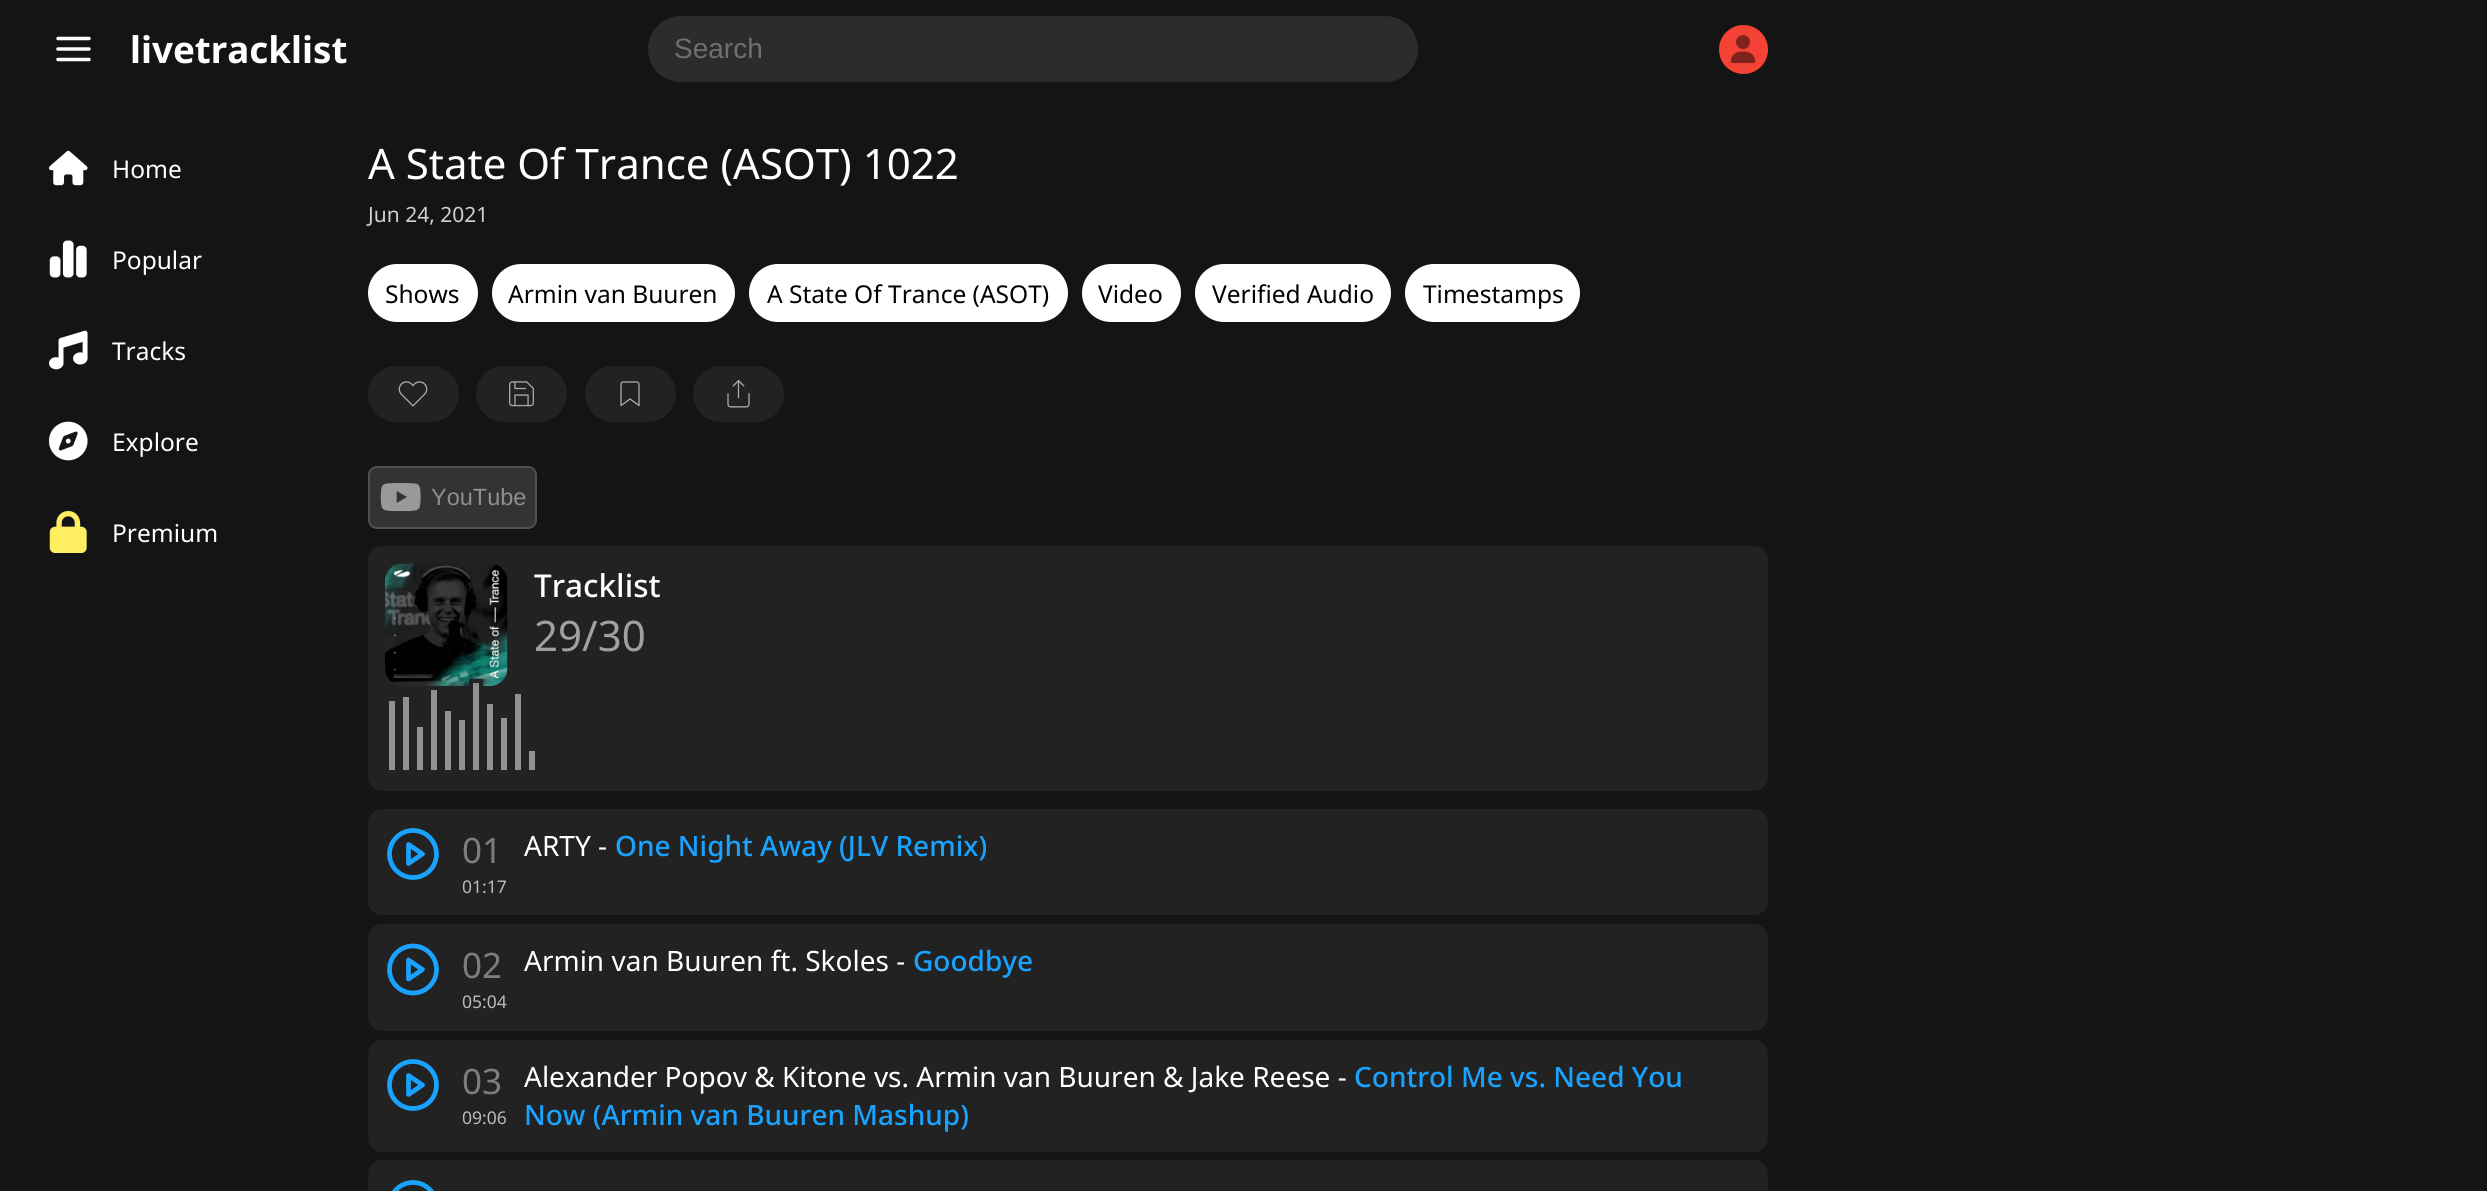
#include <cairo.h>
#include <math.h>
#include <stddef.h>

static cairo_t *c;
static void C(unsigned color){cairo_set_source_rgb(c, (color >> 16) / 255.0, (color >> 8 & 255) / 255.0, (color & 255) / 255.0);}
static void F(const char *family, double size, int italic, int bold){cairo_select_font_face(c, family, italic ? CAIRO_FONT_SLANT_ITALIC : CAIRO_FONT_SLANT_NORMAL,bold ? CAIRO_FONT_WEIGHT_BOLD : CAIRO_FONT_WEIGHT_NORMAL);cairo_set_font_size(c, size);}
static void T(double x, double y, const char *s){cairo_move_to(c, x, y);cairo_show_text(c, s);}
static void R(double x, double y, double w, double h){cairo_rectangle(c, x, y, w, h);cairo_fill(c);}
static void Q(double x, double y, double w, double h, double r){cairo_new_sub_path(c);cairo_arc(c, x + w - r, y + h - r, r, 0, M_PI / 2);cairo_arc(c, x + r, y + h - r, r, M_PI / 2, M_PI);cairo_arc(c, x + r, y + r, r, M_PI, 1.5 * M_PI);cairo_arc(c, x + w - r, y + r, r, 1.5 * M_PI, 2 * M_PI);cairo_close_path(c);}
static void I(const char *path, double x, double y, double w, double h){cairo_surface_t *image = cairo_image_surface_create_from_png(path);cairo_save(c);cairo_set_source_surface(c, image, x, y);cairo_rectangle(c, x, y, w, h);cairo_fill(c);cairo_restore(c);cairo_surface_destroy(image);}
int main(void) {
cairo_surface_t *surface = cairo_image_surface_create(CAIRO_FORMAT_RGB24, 2487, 1191);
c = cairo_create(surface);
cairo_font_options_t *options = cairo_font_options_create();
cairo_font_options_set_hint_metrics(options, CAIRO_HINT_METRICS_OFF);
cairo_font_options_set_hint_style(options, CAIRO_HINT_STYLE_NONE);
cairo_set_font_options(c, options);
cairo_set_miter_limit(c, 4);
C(0x141414);
cairo_paint(c);
cairo_new_path(c);
cairo_move_to(c,58,49);
cairo_line_to(c,89,49);
cairo_move_to(c,58,38.5);
cairo_line_to(c,89,38.5);
cairo_move_to(c,58,59.5);
cairo_line_to(c,89,59.5);
C(0xffffff);
cairo_set_line_width(c,3.5);
cairo_set_line_cap(c,CAIRO_LINE_CAP_ROUND);
cairo_set_line_join(c,CAIRO_LINE_JOIN_ROUND);
cairo_stroke(c);
F("Noto Sans",36.75,0,1);
T(130,63,"livetracklist");
C(0x2c2c2c);
Q(648,16,770,66,33);
cairo_fill(c);
F("Liberation Sans",28,0,0);
C(0x6f6f6f);
T(674,58,"Search");
C(0xf44336);
cairo_new_path(c);
cairo_arc(c,1743.5,49.5,24.5,0,2 * M_PI);
cairo_fill(c);
I("1.png",1730,35,26,28);
I("2.png",49,150,39,36);
F("Noto Sans",24.5,0,0);
C(0xffffff);
T(112,178,"Home");
I("3.png",49,240,38,38);
T(112,269,"Popular");
I("4.png",49,330,39,40);
T(112,360,"Tracks");
I("5.png",49,421,39,40);
T(112,451,"Explore");
I("6.png",49,511,38,42);
T(112,542,"Premium");
F("Noto Sans",42,0,0);
T(368,179,"A State Of Trance (ASOT) 1022");
F("Noto Sans",21,0,0);
C(0xd0d0d0);
T(368,222,"Jun 24, 2021");
C(0xffffff);
Q(368,264,110,58,29);
cairo_fill(c);
F("Noto Sans",24.5,0,0);
C(0x000000);
T(385,303,"Shows");
C(0xffffff);
Q(492,264,243,58,29);
cairo_fill(c);
C(0x000000);
T(508,303,"Armin van Buuren");
C(0xffffff);
Q(749,264,319,58,29);
cairo_fill(c);
C(0x000000);
T(767,303,"A State Of Trance (ASOT)");
C(0xffffff);
Q(1082,264,99,58,29);
cairo_fill(c);
C(0x000000);
T(1098,303,"Video");
C(0xffffff);
Q(1195,264,196,58,29);
cairo_fill(c);
C(0x000000);
T(1212,303,"Verified Audio");
C(0xffffff);
Q(1405,264,175,58,29);
cairo_fill(c);
C(0x000000);
T(1423,303,"Timestamps");
C(0x222222);
Q(368,366,91,56,28);
cairo_fill(c);
I("7.png",398,381,30,26);
Q(476,366,91,56,28);
cairo_fill(c);
I("8.png",509,381,25,26);
Q(585,366,91,56,28);
cairo_fill(c);
cairo_new_path(c);
cairo_move_to(c,639,405.5);
cairo_line_to(c,630,399);
cairo_line_to(c,621,405.5);
cairo_line_to(c,621,384.5);
cairo_curve_to(c,621,383,622,382,623.5,382);
cairo_line_to(c,636.5,382);
cairo_curve_to(c,638,382,639,383,639,384.5);
cairo_close_path(c);
C(0xaaaaae);
cairo_set_line_width(c,1.3);
cairo_stroke(c);
C(0x222222);
Q(693,366,91,56,28);
cairo_fill(c);
I("9.png",727,380,23,28);
C(0x333333);
Q(369,467,167,61,8);
cairo_fill_preserve(c);
C(0x505050);
cairo_set_line_width(c,2);
cairo_set_line_cap(c,CAIRO_LINE_CAP_BUTT);
cairo_set_line_join(c,CAIRO_LINE_JOIN_MITER);
cairo_stroke(c);
I("10.png",380,483,41,28);
F("Liberation Sans",23.5,0,0);
C(0x8f8f8f);
T(431,505,"YouTube");
C(0x222222);
Q(368,546,1400,245,14);
cairo_fill(c);
I("11.png",385,563,123,123);
F("Noto Sans Medium",31.5,0,0);
C(0xffffff);
T(534,597,"Tracklist");
F("Noto Sans",42,0,0);
C(0xa0a0a0);
T(534,651,"29/30");
C(0x919191);
R(389,701,6,69);
R(403,697,6,73);
R(417,727,6,43);
R(431,690,6,80);
R(445,711,6,59);
R(459,720,6,50);
cairo_set_source_rgba(c,1,1,1,0.5);
cairo_rectangle(c,471,681,10,91);
cairo_fill_preserve(c);
C(0x222222);
cairo_set_line_width(c,4);
cairo_stroke(c);
C(0x919191);
R(487,704,6,66);
R(501,718,6,52);
R(515,694,6,76);
R(529,751,6,19);
C(0x222222);
Q(368,809,1400,106,14);
cairo_fill(c);
cairo_arc(c,413,854,23.5,0,2 * M_PI);
C(0x19a3ff);
cairo_set_line_width(c,4.7);
cairo_stroke(c);
cairo_new_path(c);
cairo_move_to(c,408.5,844.5);
cairo_line_to(c,422.5,854);
cairo_line_to(c,408.5,863.5);
cairo_close_path(c);
cairo_set_line_cap(c,CAIRO_LINE_CAP_ROUND);
cairo_set_line_join(c,CAIRO_LINE_JOIN_ROUND);
cairo_stroke(c);
F("Noto Sans",35,0,0);
C(0x7e7e7e);
T(462,863,"01");
F("Noto Sans",17.5,0,0);
C(0xbbbbbb);
T(462,893,"01:17");
F("Noto Sans",28,0,0);
C(0xffffff);
T(524,856,"ARTY -");
F("Noto Sans Medium",28,0,0);
C(0x19a3ff);
T(615,856,"One Night Away (JLV Remix)");
C(0x222222);
Q(368,924,1400,107,14);
cairo_fill(c);
cairo_arc(c,413,969.5,23.5,0,2 * M_PI);
C(0x19a3ff);
cairo_set_line_cap(c,CAIRO_LINE_CAP_BUTT);
cairo_set_line_join(c,CAIRO_LINE_JOIN_MITER);
cairo_stroke(c);
cairo_new_path(c);
cairo_move_to(c,408.5,960);
cairo_line_to(c,422.5,969.5);
cairo_line_to(c,408.5,979);
cairo_close_path(c);
cairo_set_line_cap(c,CAIRO_LINE_CAP_ROUND);
cairo_set_line_join(c,CAIRO_LINE_JOIN_ROUND);
cairo_stroke(c);
F("Noto Sans",35,0,0);
C(0x7e7e7e);
T(462,978,"02");
F("Noto Sans",17.5,0,0);
C(0xbbbbbb);
T(462,1008,"05:04");
F("Noto Sans",28,0,0);
C(0xffffff);
T(524,971,"Armin van Buuren ft. Skoles -");
F("Noto Sans Medium",28,0,0);
C(0x19a3ff);
T(913,971,"Goodbye");
C(0x222222);
Q(368,1040,1400,112,14);
cairo_fill(c);
cairo_arc(c,413,1085,23.5,0,2 * M_PI);
C(0x19a3ff);
cairo_set_line_cap(c,CAIRO_LINE_CAP_BUTT);
cairo_set_line_join(c,CAIRO_LINE_JOIN_MITER);
cairo_stroke(c);
cairo_new_path(c);
cairo_move_to(c,408.5,1075.5);
cairo_line_to(c,422.5,1085);
cairo_line_to(c,408.5,1094.5);
cairo_close_path(c);
cairo_set_line_cap(c,CAIRO_LINE_CAP_ROUND);
cairo_set_line_join(c,CAIRO_LINE_JOIN_ROUND);
cairo_stroke(c);
F("Noto Sans",35,0,0);
C(0x7e7e7e);
T(462,1094,"03");
F("Noto Sans",17.5,0,0);
C(0xbbbbbb);
T(462,1124,"09:06");
F("Noto Sans",28,0,0);
C(0xffffff);
T(524,1087,"Alexander Popov & Kitone vs. Armin van Buuren & Jake Reese -");
F("Noto Sans Medium",28,0,0);
C(0x19a3ff);
T(1354,1087,"Control Me vs. Need You");
T(524,1125,"Now (Armin van Buuren Mashup)");
C(0x222222);
Q(368,1160,1400,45,14);
cairo_fill(c);
cairo_arc(c,413,1206,23.5,0,2 * M_PI);
C(0x19a3ff);
cairo_set_line_cap(c,CAIRO_LINE_CAP_BUTT);
cairo_set_line_join(c,CAIRO_LINE_JOIN_MITER);
cairo_stroke(c);
cairo_surface_write_to_png(surface, "o.png");
cairo_font_options_destroy(options);
cairo_destroy(c);
cairo_surface_destroy(surface);
return 0;
}
